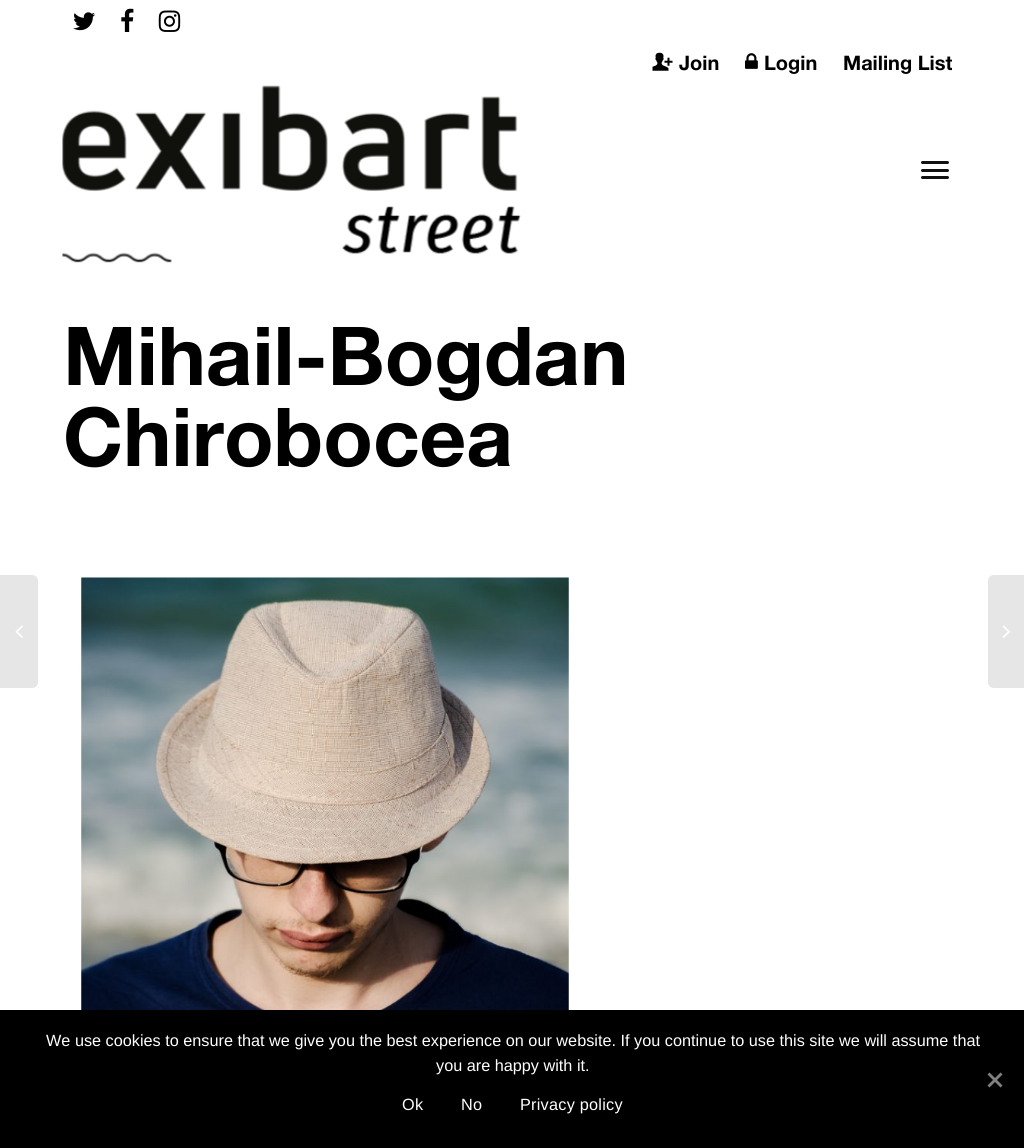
#include <cairo.h>
#include <math.h>
#include <stddef.h>

static cairo_t *c;
static void C(unsigned color){cairo_set_source_rgb(c, (color >> 16) / 255.0, (color >> 8 & 255) / 255.0, (color & 255) / 255.0);}
static void F(const char *family, double size, int italic, int bold){cairo_select_font_face(c, family, italic ? CAIRO_FONT_SLANT_ITALIC : CAIRO_FONT_SLANT_NORMAL,bold ? CAIRO_FONT_WEIGHT_BOLD : CAIRO_FONT_WEIGHT_NORMAL);cairo_set_font_size(c, size);}
static void T(double x, double y, const char *s){cairo_move_to(c, x, y);cairo_show_text(c, s);}
static void L(double x, double y, const char *s, double letter, double word){cairo_move_to(c, x, y);while (*s) {char ch[5] = {0};int n = 0;do ch[n++] = *s++; while ((*s & 0xC0) == 0x80);cairo_show_text(c, ch);cairo_rel_move_to(c, letter + word * (*ch == ' '), 0);}}
static void R(double x, double y, double w, double h){cairo_rectangle(c, x, y, w, h);cairo_fill(c);}
static void Q(double x, double y, double w, double h, double r){cairo_new_sub_path(c);cairo_arc(c, x + w - r, y + h - r, r, 0, M_PI / 2);cairo_arc(c, x + r, y + h - r, r, M_PI / 2, M_PI);cairo_arc(c, x + r, y + r, r, M_PI, 1.5 * M_PI);cairo_arc(c, x + w - r, y + r, r, 1.5 * M_PI, 2 * M_PI);cairo_close_path(c);}
static void I(const char *path, double x, double y, double w, double h){cairo_surface_t *image = cairo_image_surface_create_from_png(path);cairo_save(c);cairo_set_source_surface(c, image, x, y);cairo_rectangle(c, x, y, w, h);cairo_fill(c);cairo_restore(c);cairo_surface_destroy(image);}
int main(void) {
cairo_surface_t *surface = cairo_image_surface_create(CAIRO_FORMAT_RGB24, 1024, 1148);
c = cairo_create(surface);
cairo_font_options_t *options = cairo_font_options_create();
cairo_font_options_set_hint_metrics(options, CAIRO_HINT_METRICS_OFF);
cairo_font_options_set_hint_style(options, CAIRO_HINT_STYLE_NONE);
cairo_set_font_options(c, options);
cairo_set_miter_limit(c, 4);
C(0xffffff);
cairo_paint(c);
I("1.png",73,12,22,19);
I("2.png",121,8,13,24);
I("3.png",158,10,23,22);
I("4.png",652,52,21,19);
F("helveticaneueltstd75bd",20,0,1);
C(0x000000);
T(679,70,"Join");
I("5.png",745,53,13,16);
T(764,70,"Login");
T(843,70,"Mailing List");
I("6.png",62,85,459,178);
C(0x111111);
Q(921,161,28,3,1.5);
cairo_fill(c);
Q(921,169,28,3,1.5);
cairo_fill(c);
Q(921,176,28,3,1.5);
cairo_fill(c);
F("helveticaneueltstd75bd",81.25,0,1);
C(0x000000);
T(63,385,"Mihail-Bogdan");
T(63,466,"Chirobocea");
C(0xe6e6e6);
cairo_new_path(c);
cairo_move_to(c,-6,575);
cairo_line_to(c,32,575);
cairo_curve_to(c,35.5,575,38,577.5,38,581);
cairo_line_to(c,38,682);
cairo_curve_to(c,38,685.5,35.5,688,32,688);
cairo_line_to(c,-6,688);
cairo_close_path(c);
cairo_fill(c);
I("7.png",15,625,8,13);
cairo_new_path(c);
cairo_move_to(c,994,575);
cairo_line_to(c,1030,575);
cairo_line_to(c,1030,688);
cairo_line_to(c,994,688);
cairo_curve_to(c,990.5,688,988,685.5,988,682);
cairo_line_to(c,988,581);
cairo_curve_to(c,988,577.5,990.5,575,994,575);
cairo_close_path(c);
cairo_fill(c);
I("8.png",1002,625,8,13);
I("9.png",81,577,488,433);
C(0x000000);
R(0,1010,1024,138);
F("Liberation Sans",16.25,0,0);
C(0xffffff);
T(46,1046,"We use cookies to ensure that we give you the best experience on our website. If you continue to use this site we will assume that");
T(436,1071,"you are happy with it.");
C(0x808080);
cairo_new_path(c);
cairo_move_to(c,1000.5,1072.5);
cairo_line_to(c,1002.5,1074.5);
cairo_line_to(c,989.5,1087.5);
cairo_line_to(c,987.5,1085.5);
cairo_close_path(c);
cairo_fill(c);
cairo_new_path(c);
cairo_move_to(c,987.5,1074.5);
cairo_line_to(c,989.5,1072.5);
cairo_line_to(c,1002.5,1085.5);
cairo_line_to(c,1000.5,1087.5);
cairo_close_path(c);
cairo_fill(c);
C(0xffffff);
L(402,1110,"Ok",.25,0);
L(461,1110,"No",.25,0);
L(520,1110,"Privacy policy",.25,0);
cairo_surface_write_to_png(surface, "o.png");
cairo_font_options_destroy(options);
cairo_destroy(c);
cairo_surface_destroy(surface);
return 0;
}
